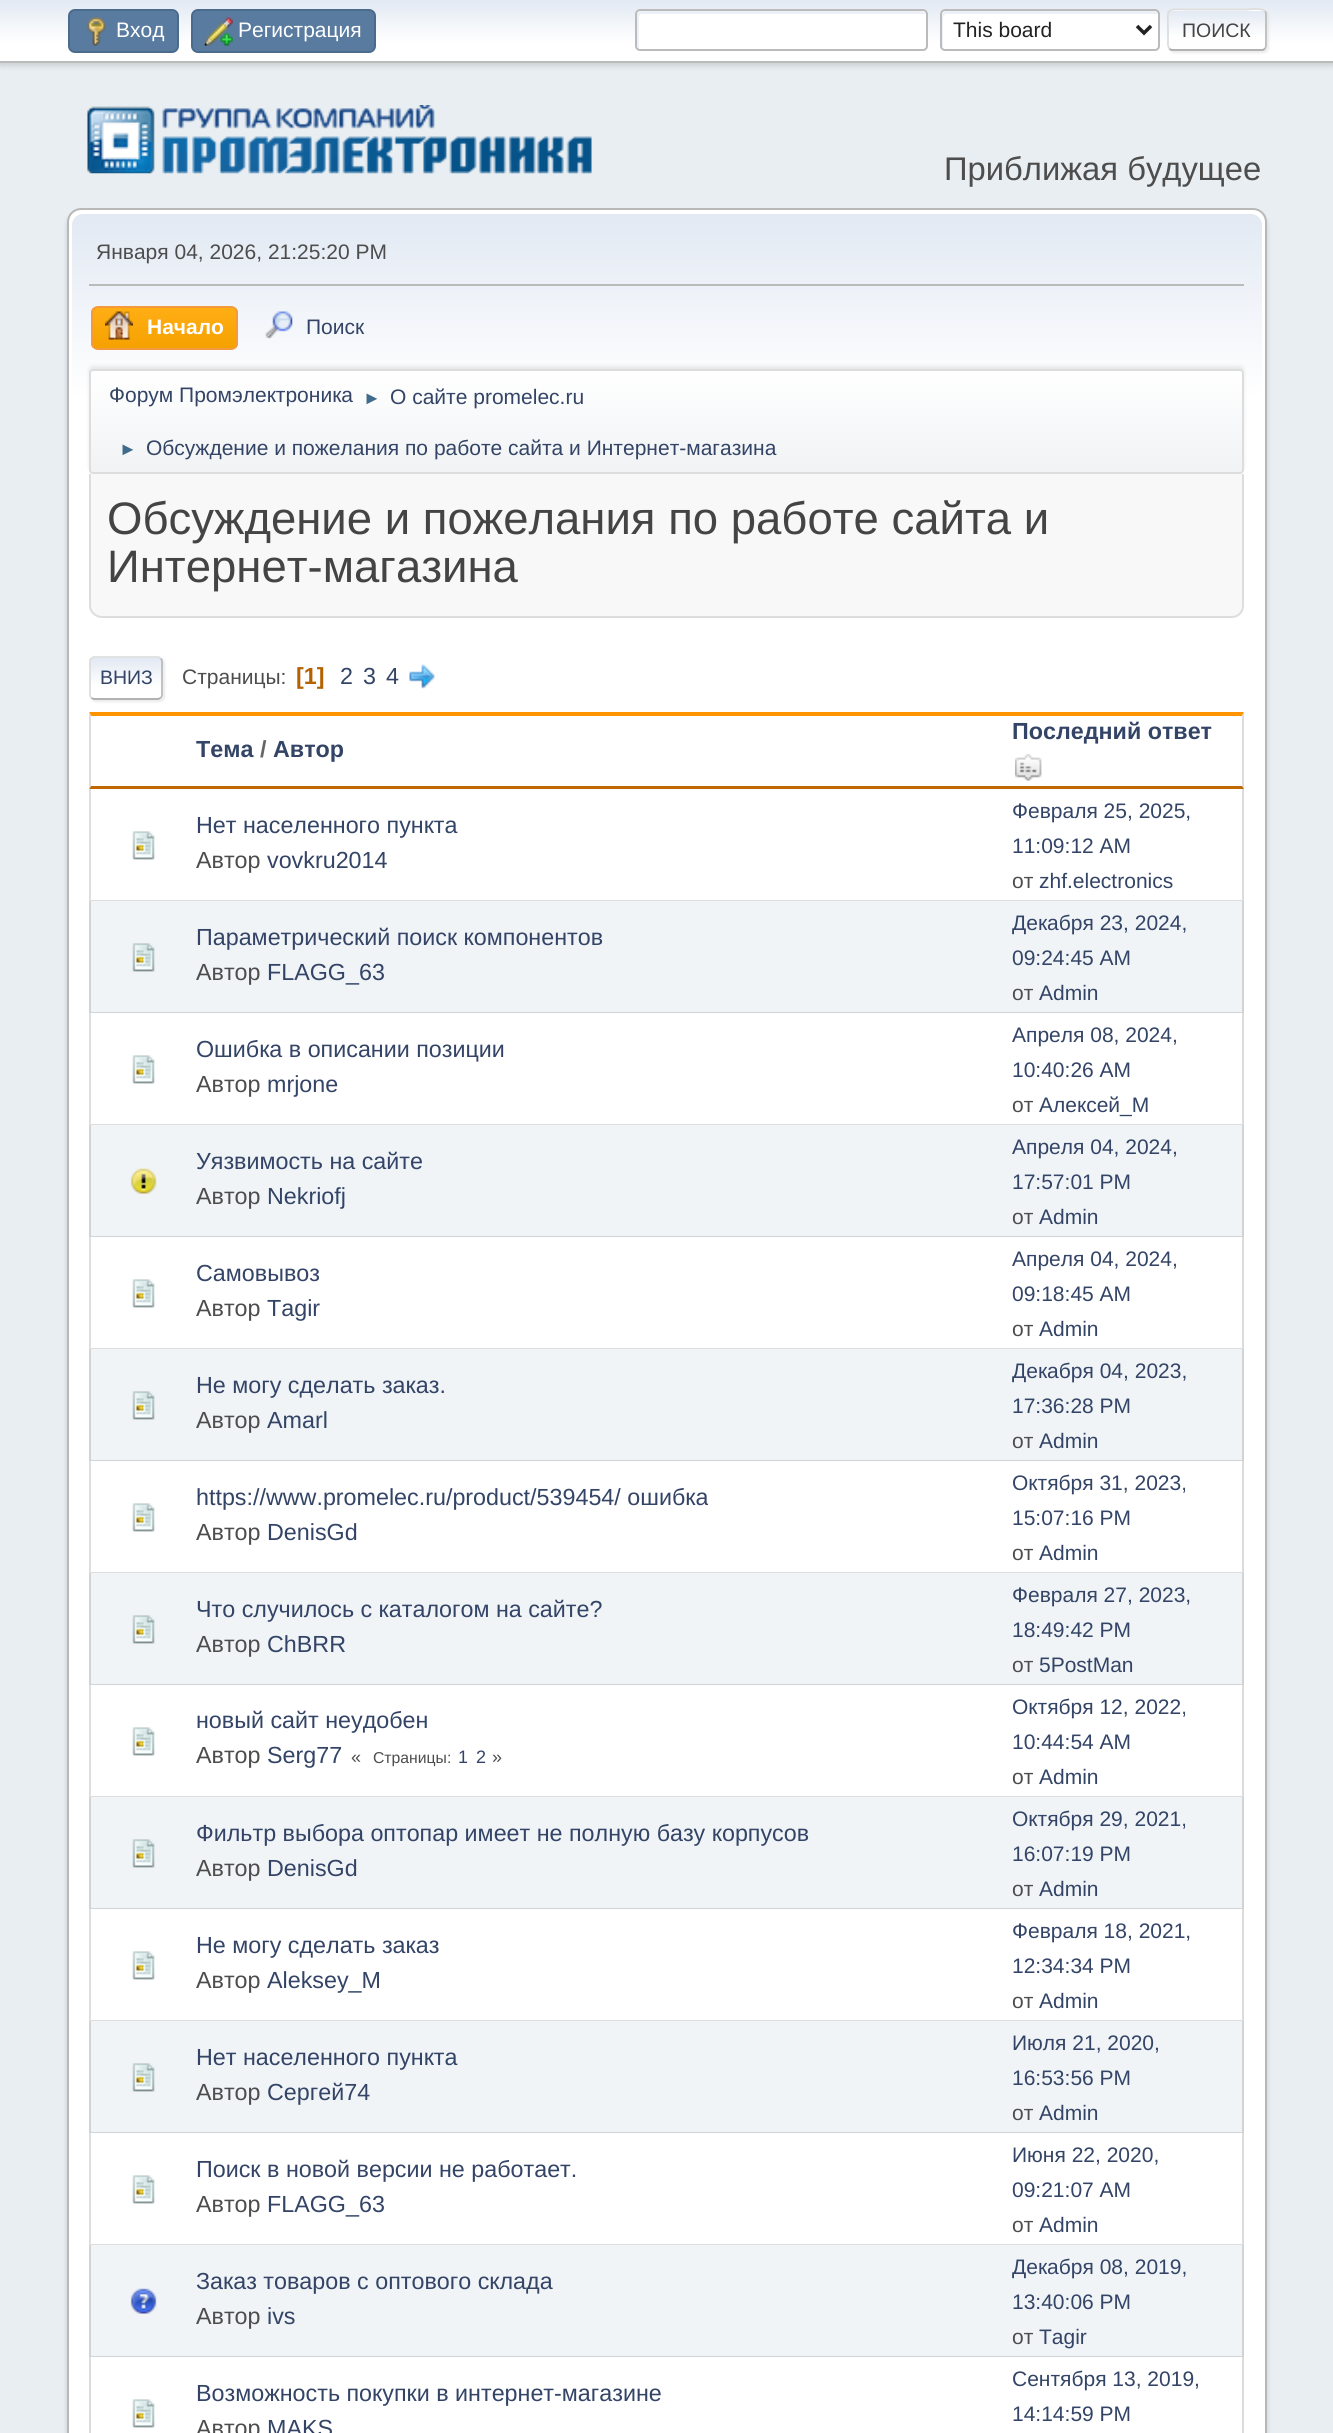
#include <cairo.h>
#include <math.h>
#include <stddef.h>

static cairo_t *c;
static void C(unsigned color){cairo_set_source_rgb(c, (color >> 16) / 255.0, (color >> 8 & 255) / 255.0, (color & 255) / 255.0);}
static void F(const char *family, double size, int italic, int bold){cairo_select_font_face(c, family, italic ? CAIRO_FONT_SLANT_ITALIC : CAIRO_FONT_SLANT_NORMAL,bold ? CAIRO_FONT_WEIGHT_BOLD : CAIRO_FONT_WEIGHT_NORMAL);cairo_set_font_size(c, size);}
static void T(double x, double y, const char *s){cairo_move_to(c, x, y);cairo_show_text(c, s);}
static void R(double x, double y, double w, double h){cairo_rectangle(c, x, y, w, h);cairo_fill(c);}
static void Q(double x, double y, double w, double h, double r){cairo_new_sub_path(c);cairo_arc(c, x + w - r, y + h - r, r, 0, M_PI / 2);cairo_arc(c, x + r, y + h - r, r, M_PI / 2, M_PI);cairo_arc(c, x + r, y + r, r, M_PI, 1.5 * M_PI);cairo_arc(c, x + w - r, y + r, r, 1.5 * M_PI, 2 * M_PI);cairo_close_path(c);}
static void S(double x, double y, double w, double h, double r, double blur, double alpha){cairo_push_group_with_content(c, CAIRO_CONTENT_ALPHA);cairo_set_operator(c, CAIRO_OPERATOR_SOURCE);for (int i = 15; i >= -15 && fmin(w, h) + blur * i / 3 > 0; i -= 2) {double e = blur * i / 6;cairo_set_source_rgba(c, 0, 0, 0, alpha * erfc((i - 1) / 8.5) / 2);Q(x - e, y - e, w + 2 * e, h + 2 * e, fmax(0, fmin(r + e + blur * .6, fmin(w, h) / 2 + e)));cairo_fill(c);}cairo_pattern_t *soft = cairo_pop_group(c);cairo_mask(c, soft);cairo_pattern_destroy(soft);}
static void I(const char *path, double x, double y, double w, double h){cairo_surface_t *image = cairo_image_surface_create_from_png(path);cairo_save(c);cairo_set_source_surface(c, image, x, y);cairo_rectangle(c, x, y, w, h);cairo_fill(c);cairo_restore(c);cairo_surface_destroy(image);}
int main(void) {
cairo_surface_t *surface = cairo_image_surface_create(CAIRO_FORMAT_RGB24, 1333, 2433);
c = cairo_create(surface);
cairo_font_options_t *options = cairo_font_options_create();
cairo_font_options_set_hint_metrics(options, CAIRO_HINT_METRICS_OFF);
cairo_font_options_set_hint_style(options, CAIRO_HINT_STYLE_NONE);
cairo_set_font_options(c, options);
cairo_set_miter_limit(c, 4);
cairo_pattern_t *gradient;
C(0xe9eef2);
cairo_paint(c);
C(0x000000);
S(0,2,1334,63,0,3.5,.16);
gradient = cairo_pattern_create_linear(667,0,667,61);
cairo_pattern_add_color_stop_rgba(gradient,0,0.886,0.914,0.953,1);
cairo_pattern_add_color_stop_rgba(gradient,.7,1,1,1,1);
cairo_set_source(c,gradient);
cairo_pattern_destroy(gradient);
R(0,0,1333,61);
C(0xbbbbbb);
R(0,61,1333,2);
C(0x597b9f);
Q(69,10,109,42,6);
cairo_fill_preserve(c);
C(0x4a6b8c);
cairo_stroke(c);
I("1.png",87,17,19,29);
F("Liberation Sans",21,0,0);
C(0xffffff);
T(116,37,"Вход");
C(0x597b9f);
Q(192,10,183,42,6);
cairo_fill_preserve(c);
C(0x4a6b8c);
cairo_stroke(c);
I("2.png",204,17,29,29);
C(0xffffff);
T(238,37,"Регистрация");
Q(635,9,293,42,5);
cairo_fill(c);
C(0xecf1f8);
cairo_new_path(c);
cairo_move_to(c,642,14);
cairo_line_to(c,924,14);
cairo_line_to(c,926,15);
cairo_curve_to(c,926,13,924,11,922,11);
cairo_line_to(c,641,11);
cairo_curve_to(c,639,11,637,13,637,15);
cairo_line_to(c,637,45);
cairo_curve_to(c,637,46,638,48,639,48);
cairo_line_to(c,639,18);
cairo_curve_to(c,639,16,640,14,642,14);
cairo_close_path(c);
cairo_fill(c);
Q(636,10,291,40,4);
C(0xbbbbbb);
cairo_stroke(c);
C(0xffffff);
Q(940,9,220,42,5);
cairo_fill(c);
C(0xecf1f8);
cairo_new_path(c);
cairo_move_to(c,947,14);
cairo_line_to(c,1157,14);
cairo_line_to(c,1159,15);
cairo_curve_to(c,1159,13,1157,11,1155,11);
cairo_line_to(c,946,11);
cairo_curve_to(c,944,11,942,13,942,15);
cairo_line_to(c,942,45);
cairo_curve_to(c,942,46,942,47,943,48);
cairo_line_to(c,943,18);
cairo_curve_to(c,943,16,945,14,947,14);
cairo_close_path(c);
cairo_fill(c);
Q(941,10,218,40,4);
C(0xbbbbbb);
cairo_stroke(c);
cairo_new_path(c);
cairo_move_to(c,1137,26);
cairo_line_to(c,1144,33);
cairo_line_to(c,1151,26);
C(0x222222);
cairo_set_line_width(c,3.5);
cairo_stroke(c);
T(953,37,"This board");
C(0xdddddd);
S(1169,11,100,42,5,1,.57);
cairo_save(c);
Q(1167,9,100,42,5);
cairo_clip(c);
gradient = cairo_pattern_create_linear(1217,-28,1217,11);
cairo_pattern_add_color_stop_rgba(gradient,0,0.886,0.914,0.953,1);
cairo_pattern_add_color_stop_rgba(gradient,.7,1,1,1,1);
cairo_set_source(c,gradient);
cairo_pattern_destroy(gradient);
R(1167,9,100,2);
gradient = cairo_pattern_create_linear(1217,10,1217,49);
cairo_pattern_add_color_stop_rgba(gradient,0,0.886,0.914,0.953,1);
cairo_pattern_add_color_stop_rgba(gradient,.7,1,1,1,1);
cairo_set_source(c,gradient);
cairo_pattern_destroy(gradient);
R(1167,11,100,38);
gradient = cairo_pattern_create_linear(1217,49,1217,88);
cairo_pattern_add_color_stop_rgba(gradient,0,0.886,0.914,0.953,1);
cairo_pattern_add_color_stop_rgba(gradient,.7,1,1,1,1);
cairo_set_source(c,gradient);
cairo_pattern_destroy(gradient);
R(1167,49,100,2);
cairo_restore(c);
cairo_new_path(c);
cairo_move_to(c,1265,11);
cairo_curve_to(c,1265.5,11.5,1266,13,1266,14);
cairo_line_to(c,1266,45.5);
cairo_curve_to(c,1266,46.5,1265.5,48,1265,48.5);
C(0xbbbbbb);
cairo_set_line_width(c,1.8);
cairo_stroke(c);
cairo_new_path(c);
cairo_move_to(c,1265,48.5);
cairo_curve_to(c,1264,49.5,1263,50,1262,50);
cairo_line_to(c,1172.5,50);
cairo_curve_to(c,1171.5,50,1170,49.5,1169.5,48.5);
C(0xaaaaaa);
cairo_stroke(c);
cairo_new_path(c);
cairo_move_to(c,1169.5,48.5);
cairo_curve_to(c,1167.5,46.5,1168,42.5,1168,40);
cairo_line_to(c,1168,30);
cairo_curve_to(c,1168,7,1164.5,9.5,1187.5,9.5);
cairo_line_to(c,1247,9.5);
cairo_curve_to(c,1247,9.5,1261.5,7.5,1265,11);
C(0xdddddd);
cairo_stroke(c);
F("Liberation Sans",19.5,0,0);
C(0x444444);
T(1182,37,"ПОИСК");
I("3.png",87,105,505,69);
F("Liberation Sans",32.75,0,0);
C(0x4d4d4d);
T(944,180,"Приближая будущее");
C(0x000000);
S(67,212,1200,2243,14,2.5,.14);
C(0xffffff);
Q(68,209,1198,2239,13);
cairo_fill_preserve(c);
C(0xb8b8b8);
cairo_set_line_width(c,2);
cairo_stroke(c);
gradient = cairo_pattern_create_linear(667,213,667,478);
cairo_pattern_add_color_stop_rgba(gradient,0,0.886,0.914,0.953,1);
cairo_pattern_add_color_stop_rgba(gradient,.7,1,1,1,1);
cairo_set_source(c,gradient);
cairo_pattern_destroy(gradient);
cairo_new_path(c);
cairo_move_to(c,83,214);
cairo_line_to(c,1251,214);
cairo_curve_to(c,1257,214,1262,219,1262,225);
cairo_line_to(c,1262,478);
cairo_line_to(c,72,478);
cairo_line_to(c,72,225);
cairo_curve_to(c,72,219,77,214,83,214);
cairo_close_path(c);
cairo_fill(c);
C(0xbbbbbb);
R(89,284,1155,2);
F("Liberation Sans",21,0,0);
C(0x4d4d4d);
T(96,259,"Января 04, 2026, 21:25:20 PM");
cairo_save(c);
Q(91,306,147,44,7);
cairo_clip(c);
gradient = cairo_pattern_create_linear(165,308,165,348);
cairo_pattern_add_color_stop_rgba(gradient,0,1,0.682,0.078,1);
cairo_pattern_add_color_stop_rgba(gradient,1,0.961,0.631,0,1);
cairo_set_source(c,gradient);
cairo_pattern_destroy(gradient);
R(91,308,147,40);
cairo_restore(c);
Q(92,307,145,42,6);
C(0xf49a3a);
cairo_stroke(c);
I("4.png",105,311,28,29);
F("Liberation Sans",21,0,1);
C(0xffffff);
T(147,334,"Начало");
I("5.png",265,311,28,28);
F("Liberation Sans",21,0,0);
C(0x334466);
T(306,334,"Поиск");
C(0x000000);
S(89,366,1155,105,4,2,.08);
cairo_save(c);
Q(89,369,1155,105,4);
cairo_clip(c);
gradient = cairo_pattern_create_linear(667,371,667,473);
cairo_pattern_add_color_stop_rgba(gradient,0,1,1,1,1);
cairo_pattern_add_color_stop_rgba(gradient,.95,0.945,0.953,0.961,1);
cairo_set_source(c,gradient);
cairo_pattern_destroy(gradient);
R(89,371,1155,102);
cairo_restore(c);
Q(90,370,1153,103,3);
C(0xdddddd);
cairo_stroke(c);
C(0x334466);
T(109,402,"Форум Промэлектроника");
F("Liberation Sans",18,0,0);
C(0x3f6b8c);
T(363,404,"►");
F("Liberation Sans",21,0,0);
C(0x334466);
T(390,404,"О сайте promelec.ru");
F("Liberation Sans",18,0,0);
C(0x3f6b8c);
T(119,455,"►");
F("Liberation Sans",21,0,0);
C(0x334466);
T(146,455,"Обсуждение и пожелания по работе сайта и Интернет-магазина");
C(0xf8f8f8);
cairo_new_path(c);
cairo_move_to(c,89,474);
cairo_line_to(c,1244,474);
cairo_line_to(c,1244,606);
cairo_curve_to(c,1244,612.5,1238.5,618,1232,618);
cairo_line_to(c,101,618);
cairo_curve_to(c,94.5,618,89,612.5,89,606);
cairo_close_path(c);
cairo_fill(c);
C(0xdddddd);
cairo_set_fill_rule(c,CAIRO_FILL_RULE_EVEN_ODD);
cairo_new_path(c);
cairo_move_to(c,89,474);
cairo_line_to(c,1244,474);
cairo_line_to(c,1244,606);
cairo_curve_to(c,1244,612,1239,618,1232,618);
cairo_line_to(c,102,618);
cairo_curve_to(c,95,618,89,612,89,606);
cairo_close_path(c);
cairo_move_to(c,91,474);
cairo_line_to(c,1242,474);
cairo_line_to(c,1242,606);
cairo_curve_to(c,1242,611,1238,616,1232,616);
cairo_line_to(c,102,616);
cairo_curve_to(c,96,616,91,611,91,606);
cairo_close_path(c);
cairo_fill(c);
F("Liberation Sans",45.5,0,0);
C(0x444444);
T(107,534,"Обсуждение и пожелания по работе сайта и");
T(107,582,"Интернет-магазина");
C(0xdddddd);
S(91,658,74,44,5,1,.57);
C(0xffffff);
Q(89,656,74,44,5);
cairo_fill(c);
cairo_save(c);
cairo_set_fill_rule(c,CAIRO_FILL_RULE_WINDING);
Q(89,656,74,44,5);
cairo_clip(c);
gradient = cairo_pattern_create_linear(126,658,126,698);
cairo_pattern_add_color_stop_rgba(gradient,0,0.886,0.914,0.953,1);
cairo_pattern_add_color_stop_rgba(gradient,.7,1,1,1,1);
cairo_set_source(c,gradient);
cairo_pattern_destroy(gradient);
R(89,658,74,40);
gradient = cairo_pattern_create_linear(126,698,126,739);
cairo_pattern_add_color_stop_rgba(gradient,0,0.886,0.914,0.953,1);
cairo_pattern_add_color_stop_rgba(gradient,.7,1,1,1,1);
cairo_set_source(c,gradient);
cairo_pattern_destroy(gradient);
R(89,698,74,2);
cairo_restore(c);
cairo_new_path(c);
cairo_move_to(c,160.5,658.5);
cairo_curve_to(c,161.5,659,162,660.5,162,661.5);
cairo_line_to(c,162,695);
cairo_curve_to(c,162,696,161.5,697,160.5,698);
C(0xbbbbbb);
cairo_set_line_width(c,1.8);
cairo_stroke(c);
cairo_new_path(c);
cairo_move_to(c,160.5,698);
cairo_line_to(c,158,699);
cairo_line_to(c,94,699);
cairo_line_to(c,91.5,698);
C(0xaaaaaa);
cairo_stroke(c);
cairo_new_path(c);
cairo_move_to(c,91.5,698);
cairo_curve_to(c,90.5,697,90,696,90,695);
cairo_line_to(c,90,661.5);
cairo_curve_to(c,90,660.5,90.5,659,91.5,658.5);
cairo_curve_to(c,92,657.5,93.5,657,94.5,657);
cairo_line_to(c,157.5,657);
cairo_curve_to(c,158.5,657,160,657.5,160.5,658.5);
C(0xdddddd);
cairo_stroke(c);
F("Liberation Sans",19.5,0,0);
C(0x334466);
T(100,684,"ВНИЗ");
F("Liberation Sans",21,0,0);
C(0x4d4d4d);
T(182,684,"Страницы:");
F("Liberation Sans",23.3,0,1);
C(0xb46100);
T(296,684,"[1]");
F("Liberation Sans",23.3,0,0);
C(0x334466);
T(340,684,"2");
T(363,684,"3");
T(386,684,"4");
I("6.png",409,664,26,25);
C(0xff9400);
cairo_set_fill_rule(c,CAIRO_FILL_RULE_WINDING);
cairo_new_path(c);
cairo_move_to(c,89,712);
cairo_line_to(c,1244,712);
cairo_line_to(c,1242,716);
cairo_line_to(c,91,716);
cairo_close_path(c);
cairo_fill(c);
C(0xdddddd);
cairo_new_path(c);
cairo_move_to(c,1244,712);
cairo_line_to(c,1244,789);
cairo_line_to(c,1242,786);
cairo_line_to(c,1242,716);
cairo_close_path(c);
cairo_fill(c);
C(0xbf6900);
cairo_new_path(c);
cairo_move_to(c,1244,789);
cairo_line_to(c,89,789);
cairo_line_to(c,91,786);
cairo_line_to(c,1242,786);
cairo_close_path(c);
cairo_fill(c);
C(0xdddddd);
cairo_new_path(c);
cairo_move_to(c,89,789);
cairo_line_to(c,89,712);
cairo_line_to(c,91,716);
cairo_line_to(c,91,786);
cairo_close_path(c);
cairo_fill(c);
F("Liberation Sans",23.3,0,1);
C(0x334466);
T(1012,739,"Последний ответ");
I("7.png",1015,754,27,27);
T(196,757,"Тема");
C(0x666666);
T(260,757,"/");
C(0x334466);
T(273,757,"Автор");
C(0xdcdcdc);
cairo_new_path(c);
cairo_move_to(c,1244,789);
cairo_line_to(c,1244,901);
cairo_line_to(c,1242,900);
cairo_line_to(c,1242,789);
cairo_close_path(c);
cairo_fill(c);
cairo_set_source_rgba(c,0,0,0,0.13);
cairo_new_path(c);
cairo_move_to(c,1244,901);
cairo_line_to(c,89,901);
cairo_line_to(c,91,900);
cairo_line_to(c,1242,900);
cairo_close_path(c);
cairo_fill(c);
cairo_new_path(c);
cairo_move_to(c,89,901);
cairo_line_to(c,89,789);
cairo_line_to(c,91,789);
cairo_line_to(c,91,900);
cairo_close_path(c);
cairo_fill(c);
I("8.png",132,831,23,29);
F("Liberation Sans",23.3,0,0);
C(0x334466);
T(196,833,"Нет населенного пункта");
C(0x4d4d4d);
T(196,868,"Автор");
C(0x334466);
T(267,868,"vovkru2014");
F("Liberation Sans",21,0,0);
T(1012,818,"Февраля 25, 2025,");
T(1012,853,"11:09:12 AM");
C(0x4d4d4d);
T(1012,888,"от");
C(0x334466);
T(1039,888,"zhf.electronics");
C(0xf0f4f7);
R(89,901,1155,112);
C(0xd1d4d7);
cairo_new_path(c);
cairo_move_to(c,1244,901);
cairo_line_to(c,1244,1013);
cairo_line_to(c,1242,1012);
cairo_line_to(c,1242,901);
cairo_close_path(c);
cairo_fill(c);
cairo_set_source_rgba(c,0,0,0,0.13);
cairo_new_path(c);
cairo_move_to(c,1244,1013);
cairo_line_to(c,89,1013);
cairo_line_to(c,91,1012);
cairo_line_to(c,1242,1012);
cairo_close_path(c);
cairo_fill(c);
cairo_new_path(c);
cairo_move_to(c,89,1013);
cairo_line_to(c,89,901);
cairo_line_to(c,91,901);
cairo_line_to(c,91,1012);
cairo_close_path(c);
cairo_fill(c);
I("9.png",132,943,23,29);
F("Liberation Sans",23.3,0,0);
C(0x334466);
T(196,945,"Параметрический поиск компонентов");
C(0x4d4d4d);
T(196,980,"Автор");
C(0x334466);
T(267,980,"FLAGG_63");
F("Liberation Sans",21,0,0);
T(1012,930,"Декабря 23, 2024,");
T(1012,965,"09:24:45 AM");
C(0x4d4d4d);
T(1012,1000,"от");
C(0x334466);
T(1039,1000,"Admin");
C(0xdcdcdc);
cairo_new_path(c);
cairo_move_to(c,1244,1013);
cairo_line_to(c,1244,1125);
cairo_line_to(c,1242,1124);
cairo_line_to(c,1242,1013);
cairo_close_path(c);
cairo_fill(c);
cairo_set_source_rgba(c,0,0,0,0.13);
cairo_new_path(c);
cairo_move_to(c,1244,1125);
cairo_line_to(c,89,1125);
cairo_line_to(c,91,1124);
cairo_line_to(c,1242,1124);
cairo_close_path(c);
cairo_fill(c);
cairo_new_path(c);
cairo_move_to(c,89,1125);
cairo_line_to(c,89,1013);
cairo_line_to(c,91,1013);
cairo_line_to(c,91,1124);
cairo_close_path(c);
cairo_fill(c);
I("8.png",132,1055,23,29);
F("Liberation Sans",23.3,0,0);
C(0x334466);
T(196,1057,"Ошибка в описании позиции");
C(0x4d4d4d);
T(196,1092,"Автор");
C(0x334466);
T(267,1092,"mrjone");
F("Liberation Sans",21,0,0);
T(1012,1042,"Апреля 08, 2024,");
T(1012,1077,"10:40:26 AM");
C(0x4d4d4d);
T(1012,1112,"от");
C(0x334466);
T(1039,1112,"Алексей_М");
C(0xf0f4f7);
R(89,1125,1155,112);
C(0xd1d4d7);
cairo_new_path(c);
cairo_move_to(c,1244,1125);
cairo_line_to(c,1244,1237);
cairo_line_to(c,1242,1236);
cairo_line_to(c,1242,1125);
cairo_close_path(c);
cairo_fill(c);
cairo_set_source_rgba(c,0,0,0,0.13);
cairo_new_path(c);
cairo_move_to(c,1244,1237);
cairo_line_to(c,89,1237);
cairo_line_to(c,91,1236);
cairo_line_to(c,1242,1236);
cairo_close_path(c);
cairo_fill(c);
cairo_new_path(c);
cairo_move_to(c,89,1237);
cairo_line_to(c,89,1125);
cairo_line_to(c,91,1125);
cairo_line_to(c,91,1236);
cairo_close_path(c);
cairo_fill(c);
I("10.png",130,1168,27,26);
F("Liberation Sans",23.3,0,0);
C(0x334466);
T(196,1169,"Уязвимость на сайте");
C(0x4d4d4d);
T(196,1204,"Автор");
C(0x334466);
T(267,1204,"Nekriofj");
F("Liberation Sans",21,0,0);
T(1012,1154,"Апреля 04, 2024,");
T(1012,1189,"17:57:01 PM");
C(0x4d4d4d);
T(1012,1224,"от");
C(0x334466);
T(1039,1224,"Admin");
C(0xdcdcdc);
cairo_new_path(c);
cairo_move_to(c,1244,1237);
cairo_line_to(c,1244,1349);
cairo_line_to(c,1242,1348);
cairo_line_to(c,1242,1237);
cairo_close_path(c);
cairo_fill(c);
cairo_set_source_rgba(c,0,0,0,0.13);
cairo_new_path(c);
cairo_move_to(c,1244,1349);
cairo_line_to(c,89,1349);
cairo_line_to(c,91,1348);
cairo_line_to(c,1242,1348);
cairo_close_path(c);
cairo_fill(c);
cairo_new_path(c);
cairo_move_to(c,89,1349);
cairo_line_to(c,89,1237);
cairo_line_to(c,91,1237);
cairo_line_to(c,91,1348);
cairo_close_path(c);
cairo_fill(c);
I("8.png",132,1279,23,29);
F("Liberation Sans",23.3,0,0);
C(0x334466);
T(196,1281,"Самовывоз");
C(0x4d4d4d);
T(196,1316,"Автор");
C(0x334466);
T(267,1316,"Tagir");
F("Liberation Sans",21,0,0);
T(1012,1266,"Апреля 04, 2024,");
T(1012,1301,"09:18:45 AM");
C(0x4d4d4d);
T(1012,1336,"от");
C(0x334466);
T(1039,1336,"Admin");
C(0xf0f4f7);
R(89,1349,1155,112);
C(0xd1d4d7);
cairo_new_path(c);
cairo_move_to(c,1244,1349);
cairo_line_to(c,1244,1461);
cairo_line_to(c,1242,1460);
cairo_line_to(c,1242,1349);
cairo_close_path(c);
cairo_fill(c);
cairo_set_source_rgba(c,0,0,0,0.13);
cairo_new_path(c);
cairo_move_to(c,1244,1461);
cairo_line_to(c,89,1461);
cairo_line_to(c,91,1460);
cairo_line_to(c,1242,1460);
cairo_close_path(c);
cairo_fill(c);
cairo_new_path(c);
cairo_move_to(c,89,1461);
cairo_line_to(c,89,1349);
cairo_line_to(c,91,1349);
cairo_line_to(c,91,1460);
cairo_close_path(c);
cairo_fill(c);
I("9.png",132,1391,23,29);
F("Liberation Sans",23.3,0,0);
C(0x334466);
T(196,1393,"Не могу сделать заказ.");
C(0x4d4d4d);
T(196,1428,"Автор");
C(0x334466);
T(267,1428,"Amarl");
F("Liberation Sans",21,0,0);
T(1012,1378,"Декабря 04, 2023,");
T(1012,1413,"17:36:28 PM");
C(0x4d4d4d);
T(1012,1448,"от");
C(0x334466);
T(1039,1448,"Admin");
C(0xdcdcdc);
cairo_new_path(c);
cairo_move_to(c,1244,1461);
cairo_line_to(c,1244,1573);
cairo_line_to(c,1242,1572);
cairo_line_to(c,1242,1461);
cairo_close_path(c);
cairo_fill(c);
cairo_set_source_rgba(c,0,0,0,0.13);
cairo_new_path(c);
cairo_move_to(c,1244,1573);
cairo_line_to(c,89,1573);
cairo_line_to(c,91,1572);
cairo_line_to(c,1242,1572);
cairo_close_path(c);
cairo_fill(c);
cairo_new_path(c);
cairo_move_to(c,89,1573);
cairo_line_to(c,89,1461);
cairo_line_to(c,91,1461);
cairo_line_to(c,91,1572);
cairo_close_path(c);
cairo_fill(c);
I("8.png",132,1503,23,29);
F("Liberation Sans",23.3,0,0);
C(0x334466);
T(196,1505,"https://www.promelec.ru/product/539454/ ошибка");
C(0x4d4d4d);
T(196,1540,"Автор");
C(0x334466);
T(267,1540,"DenisGd");
F("Liberation Sans",21,0,0);
T(1012,1490,"Октября 31, 2023,");
T(1012,1525,"15:07:16 PM");
C(0x4d4d4d);
T(1012,1560,"от");
C(0x334466);
T(1039,1560,"Admin");
C(0xf0f4f7);
R(89,1573,1155,112);
C(0xd1d4d7);
cairo_new_path(c);
cairo_move_to(c,1244,1573);
cairo_line_to(c,1244,1685);
cairo_line_to(c,1242,1684);
cairo_line_to(c,1242,1573);
cairo_close_path(c);
cairo_fill(c);
cairo_set_source_rgba(c,0,0,0,0.13);
cairo_new_path(c);
cairo_move_to(c,1244,1685);
cairo_line_to(c,89,1685);
cairo_line_to(c,91,1684);
cairo_line_to(c,1242,1684);
cairo_close_path(c);
cairo_fill(c);
cairo_new_path(c);
cairo_move_to(c,89,1685);
cairo_line_to(c,89,1573);
cairo_line_to(c,91,1573);
cairo_line_to(c,91,1684);
cairo_close_path(c);
cairo_fill(c);
I("9.png",132,1615,23,29);
F("Liberation Sans",23.3,0,0);
C(0x334466);
T(196,1617,"Что случилось с каталогом на сайте?");
C(0x4d4d4d);
T(196,1652,"Автор");
C(0x334466);
T(267,1652,"ChBRR");
F("Liberation Sans",21,0,0);
T(1012,1602,"Февраля 27, 2023,");
T(1012,1637,"18:49:42 PM");
C(0x4d4d4d);
T(1012,1672,"от");
C(0x334466);
T(1039,1672,"5PostMan");
C(0xdcdcdc);
cairo_new_path(c);
cairo_move_to(c,1244,1685);
cairo_line_to(c,1244,1797);
cairo_line_to(c,1242,1796);
cairo_line_to(c,1242,1685);
cairo_close_path(c);
cairo_fill(c);
cairo_set_source_rgba(c,0,0,0,0.13);
cairo_new_path(c);
cairo_move_to(c,1244,1797);
cairo_line_to(c,89,1797);
cairo_line_to(c,91,1796);
cairo_line_to(c,1242,1796);
cairo_close_path(c);
cairo_fill(c);
cairo_new_path(c);
cairo_move_to(c,89,1797);
cairo_line_to(c,89,1685);
cairo_line_to(c,91,1685);
cairo_line_to(c,91,1796);
cairo_close_path(c);
cairo_fill(c);
I("8.png",132,1727,23,29);
F("Liberation Sans",23.3,0,0);
C(0x334466);
T(196,1728,"новый сайт неудобен");
C(0x4d4d4d);
T(196,1763,"Автор");
C(0x334466);
T(267,1763,"Serg77");
F("Liberation Sans",18,0,0);
C(0x4d4d4d);
T(351,1763,"«");
F("Liberation Sans",15.75,0,0);
T(373,1763,"Страницы:");
F("Liberation Sans",18,0,0);
C(0x334466);
T(458,1763,"1");
T(476,1763,"2");
C(0x4d4d4d);
T(492,1763,"»");
F("Liberation Sans",21,0,0);
C(0x334466);
T(1012,1714,"Октября 12, 2022,");
T(1012,1749,"10:44:54 AM");
C(0x4d4d4d);
T(1012,1784,"от");
C(0x334466);
T(1039,1784,"Admin");
C(0xf0f4f7);
R(89,1797,1155,112);
C(0xd1d4d7);
cairo_new_path(c);
cairo_move_to(c,1244,1797);
cairo_line_to(c,1244,1909);
cairo_line_to(c,1242,1908);
cairo_line_to(c,1242,1797);
cairo_close_path(c);
cairo_fill(c);
cairo_set_source_rgba(c,0,0,0,0.13);
cairo_new_path(c);
cairo_move_to(c,1244,1909);
cairo_line_to(c,89,1909);
cairo_line_to(c,91,1908);
cairo_line_to(c,1242,1908);
cairo_close_path(c);
cairo_fill(c);
cairo_new_path(c);
cairo_move_to(c,89,1909);
cairo_line_to(c,89,1797);
cairo_line_to(c,91,1797);
cairo_line_to(c,91,1908);
cairo_close_path(c);
cairo_fill(c);
I("9.png",132,1839,23,29);
F("Liberation Sans",23.3,0,0);
C(0x334466);
T(196,1841,"Фильтр выбора оптопар имеет не полную базу корпусов");
C(0x4d4d4d);
T(196,1876,"Автор");
C(0x334466);
T(267,1876,"DenisGd");
F("Liberation Sans",21,0,0);
T(1012,1826,"Октября 29, 2021,");
T(1012,1861,"16:07:19 PM");
C(0x4d4d4d);
T(1012,1896,"от");
C(0x334466);
T(1039,1896,"Admin");
C(0xdcdcdc);
cairo_new_path(c);
cairo_move_to(c,1244,1909);
cairo_line_to(c,1244,2021);
cairo_line_to(c,1242,2020);
cairo_line_to(c,1242,1909);
cairo_close_path(c);
cairo_fill(c);
cairo_set_source_rgba(c,0,0,0,0.13);
cairo_new_path(c);
cairo_move_to(c,1244,2021);
cairo_line_to(c,89,2021);
cairo_line_to(c,91,2020);
cairo_line_to(c,1242,2020);
cairo_close_path(c);
cairo_fill(c);
cairo_new_path(c);
cairo_move_to(c,89,2021);
cairo_line_to(c,89,1909);
cairo_line_to(c,91,1909);
cairo_line_to(c,91,2020);
cairo_close_path(c);
cairo_fill(c);
I("8.png",132,1951,23,29);
F("Liberation Sans",23.3,0,0);
C(0x334466);
T(196,1953,"Не могу сделать заказ");
C(0x4d4d4d);
T(196,1988,"Автор");
C(0x334466);
T(267,1988,"Aleksey_M");
F("Liberation Sans",21,0,0);
T(1012,1938,"Февраля 18, 2021,");
T(1012,1973,"12:34:34 PM");
C(0x4d4d4d);
T(1012,2008,"от");
C(0x334466);
T(1039,2008,"Admin");
C(0xf0f4f7);
R(89,2021,1155,112);
C(0xd1d4d7);
cairo_new_path(c);
cairo_move_to(c,1244,2021);
cairo_line_to(c,1244,2133);
cairo_line_to(c,1242,2132);
cairo_line_to(c,1242,2021);
cairo_close_path(c);
cairo_fill(c);
cairo_set_source_rgba(c,0,0,0,0.13);
cairo_new_path(c);
cairo_move_to(c,1244,2133);
cairo_line_to(c,89,2133);
cairo_line_to(c,91,2132);
cairo_line_to(c,1242,2132);
cairo_close_path(c);
cairo_fill(c);
cairo_new_path(c);
cairo_move_to(c,89,2133);
cairo_line_to(c,89,2021);
cairo_line_to(c,91,2021);
cairo_line_to(c,91,2132);
cairo_close_path(c);
cairo_fill(c);
I("9.png",132,2063,23,29);
F("Liberation Sans",23.3,0,0);
C(0x334466);
T(196,2065,"Нет населенного пункта");
C(0x4d4d4d);
T(196,2100,"Автор");
C(0x334466);
T(267,2100,"Сергей74");
F("Liberation Sans",21,0,0);
T(1012,2050,"Июля 21, 2020,");
T(1012,2085,"16:53:56 PM");
C(0x4d4d4d);
T(1012,2120,"от");
C(0x334466);
T(1039,2120,"Admin");
C(0xdcdcdc);
cairo_new_path(c);
cairo_move_to(c,1244,2133);
cairo_line_to(c,1244,2245);
cairo_line_to(c,1242,2244);
cairo_line_to(c,1242,2133);
cairo_close_path(c);
cairo_fill(c);
cairo_set_source_rgba(c,0,0,0,0.13);
cairo_new_path(c);
cairo_move_to(c,1244,2245);
cairo_line_to(c,89,2245);
cairo_line_to(c,91,2244);
cairo_line_to(c,1242,2244);
cairo_close_path(c);
cairo_fill(c);
cairo_new_path(c);
cairo_move_to(c,89,2245);
cairo_line_to(c,89,2133);
cairo_line_to(c,91,2133);
cairo_line_to(c,91,2244);
cairo_close_path(c);
cairo_fill(c);
I("8.png",132,2175,23,29);
F("Liberation Sans",23.3,0,0);
C(0x334466);
T(196,2177,"Поиск в новой версии не работает.");
C(0x4d4d4d);
T(196,2212,"Автор");
C(0x334466);
T(267,2212,"FLAGG_63");
F("Liberation Sans",21,0,0);
T(1012,2162,"Июня 22, 2020,");
T(1012,2197,"09:21:07 AM");
C(0x4d4d4d);
T(1012,2232,"от");
C(0x334466);
T(1039,2232,"Admin");
C(0xf0f4f7);
R(89,2245,1155,112);
C(0xd1d4d7);
cairo_new_path(c);
cairo_move_to(c,1244,2245);
cairo_line_to(c,1244,2357);
cairo_line_to(c,1242,2356);
cairo_line_to(c,1242,2245);
cairo_close_path(c);
cairo_fill(c);
cairo_set_source_rgba(c,0,0,0,0.13);
cairo_new_path(c);
cairo_move_to(c,1244,2357);
cairo_line_to(c,89,2357);
cairo_line_to(c,91,2356);
cairo_line_to(c,1242,2356);
cairo_close_path(c);
cairo_fill(c);
cairo_new_path(c);
cairo_move_to(c,89,2357);
cairo_line_to(c,89,2245);
cairo_line_to(c,91,2245);
cairo_line_to(c,91,2356);
cairo_close_path(c);
cairo_fill(c);
I("11.png",130,2288,27,26);
F("Liberation Sans",23.3,0,0);
C(0x334466);
T(196,2289,"Заказ товаров с оптового склада");
C(0x4d4d4d);
T(196,2324,"Автор");
C(0x334466);
T(267,2324,"ivs");
F("Liberation Sans",21,0,0);
T(1012,2274,"Декабря 08, 2019,");
T(1012,2309,"13:40:06 PM");
C(0x4d4d4d);
T(1012,2344,"от");
C(0x334466);
T(1039,2344,"Tagir");
C(0xdcdcdc);
cairo_new_path(c);
cairo_move_to(c,1244,2357);
cairo_line_to(c,1244,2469);
cairo_line_to(c,1242,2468);
cairo_line_to(c,1242,2357);
cairo_close_path(c);
cairo_fill(c);
cairo_new_path(c);
cairo_move_to(c,89,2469);
cairo_line_to(c,89,2357);
cairo_line_to(c,91,2357);
cairo_line_to(c,91,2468);
cairo_close_path(c);
cairo_fill(c);
I("8.png",132,2399,23,29);
F("Liberation Sans",23.3,0,0);
C(0x334466);
T(196,2401,"Возможность покупки в интернет-магазине");
C(0x4d4d4d);
T(196,2436,"Автор");
C(0x334466);
T(267,2436,"MAKS");
F("Liberation Sans",21,0,0);
T(1012,2386,"Сентября 13, 2019,");
T(1012,2421,"14:14:59 PM");
cairo_surface_write_to_png(surface, "o.png");
cairo_font_options_destroy(options);
cairo_destroy(c);
cairo_surface_destroy(surface);
return 0;
}
